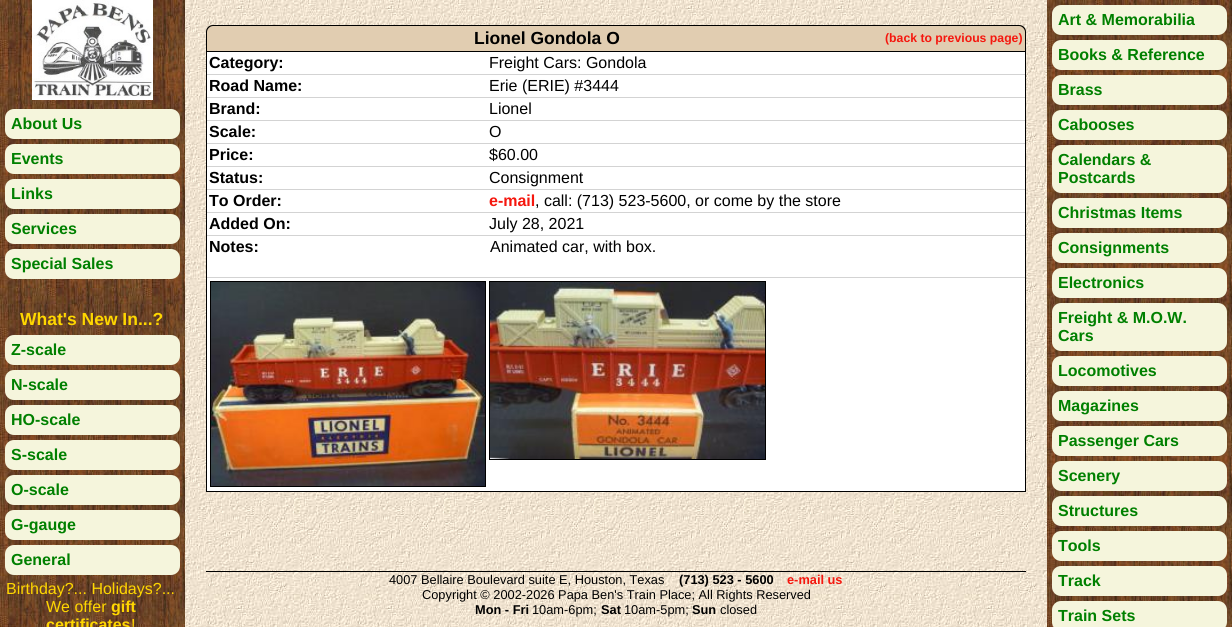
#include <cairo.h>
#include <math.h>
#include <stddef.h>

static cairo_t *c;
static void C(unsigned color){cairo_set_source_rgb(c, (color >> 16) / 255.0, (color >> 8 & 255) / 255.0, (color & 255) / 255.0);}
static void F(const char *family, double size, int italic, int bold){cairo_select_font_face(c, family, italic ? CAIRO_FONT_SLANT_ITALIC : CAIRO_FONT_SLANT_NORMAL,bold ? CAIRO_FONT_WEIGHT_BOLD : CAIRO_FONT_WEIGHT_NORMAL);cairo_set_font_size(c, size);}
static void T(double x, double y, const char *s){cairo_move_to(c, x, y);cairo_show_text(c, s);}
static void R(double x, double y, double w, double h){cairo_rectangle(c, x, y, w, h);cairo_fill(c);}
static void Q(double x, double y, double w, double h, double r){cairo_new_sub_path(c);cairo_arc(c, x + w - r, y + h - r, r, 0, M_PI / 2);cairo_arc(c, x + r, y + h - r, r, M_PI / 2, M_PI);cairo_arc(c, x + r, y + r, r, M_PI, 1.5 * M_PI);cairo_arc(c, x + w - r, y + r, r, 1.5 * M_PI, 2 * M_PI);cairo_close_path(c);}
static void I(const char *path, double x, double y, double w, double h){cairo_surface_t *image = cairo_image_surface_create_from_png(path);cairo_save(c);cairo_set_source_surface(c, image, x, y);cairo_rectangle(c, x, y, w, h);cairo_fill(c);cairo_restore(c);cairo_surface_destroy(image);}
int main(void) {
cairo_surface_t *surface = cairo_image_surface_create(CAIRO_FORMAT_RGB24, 1232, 627);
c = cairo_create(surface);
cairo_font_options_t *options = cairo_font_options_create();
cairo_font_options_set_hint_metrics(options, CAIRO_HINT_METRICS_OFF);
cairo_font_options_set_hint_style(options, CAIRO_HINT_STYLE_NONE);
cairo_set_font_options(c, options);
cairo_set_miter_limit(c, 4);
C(0xffffff);
cairo_paint(c);
I("1.png",185,0,862,627);
I("2.png",0,0,185,627);
I("3.png",32,0,121,100);
C(0xf5f5dc);
Q(5,109,175,30,9);
cairo_fill(c);
F("Liberation Sans",16,0,1);
C(0x008000);
T(11,129,"About Us");
C(0xf5f5dc);
Q(5,144,175,30,9);
cairo_fill(c);
C(0x008000);
T(11,164,"Events");
C(0xf5f5dc);
Q(5,179,175,30,9);
cairo_fill(c);
C(0x008000);
T(11,199,"Links");
C(0xf5f5dc);
Q(5,214,175,30,9);
cairo_fill(c);
C(0x008000);
T(11,234,"Services");
C(0xf5f5dc);
Q(5,249,175,30,9);
cairo_fill(c);
C(0x008000);
T(11,269,"Special Sales");
F("Liberation Sans",17.5,0,1);
C(0xffd700);
T(20,325,"What's New In...?");
C(0xf5f5dc);
Q(5,335,175,30,9);
cairo_fill(c);
F("Liberation Sans",16,0,1);
C(0x008000);
T(11,355,"Z-scale");
C(0xf5f5dc);
Q(5,370,175,30,9);
cairo_fill(c);
C(0x008000);
T(11,390,"N-scale");
C(0xf5f5dc);
Q(5,405,175,30,9);
cairo_fill(c);
C(0x008000);
T(11,425,"HO-scale");
C(0xf5f5dc);
Q(5,440,175,30,9);
cairo_fill(c);
C(0x008000);
T(11,460,"S-scale");
C(0xf5f5dc);
Q(5,475,175,30,9);
cairo_fill(c);
C(0x008000);
T(11,495,"O-scale");
C(0xf5f5dc);
Q(5,510,175,30,9);
cairo_fill(c);
C(0x008000);
T(11,530,"G-gauge");
C(0xf5f5dc);
Q(5,545,175,30,9);
cairo_fill(c);
C(0x008000);
T(11,565,"General");
F("Liberation Sans",16,0,0);
C(0xffd700);
T(6,594,"Birthday?... Holidays?...");
T(46,612,"We offer");
F("Liberation Sans",16,0,1);
T(111,612,"gift");
T(46,630,"certificates");
F("Liberation Sans",16,0,0);
T(131,630,"!");
C(0xe1cdb1);
cairo_new_path(c);
cairo_move_to(c,213,25);
cairo_line_to(c,1019,25);
cairo_curve_to(c,1023,25,1026,28,1026,32);
cairo_line_to(c,1026,51);
cairo_line_to(c,206,51);
cairo_line_to(c,206,32);
cairo_curve_to(c,206,28,209,25,213,25);
cairo_close_path(c);
cairo_fill(c);
C(0x000000);
cairo_set_fill_rule(c,CAIRO_FILL_RULE_EVEN_ODD);
cairo_new_path(c);
cairo_move_to(c,213,25);
cairo_line_to(c,1019,25);
cairo_curve_to(c,1023,25,1026,28,1026,32);
cairo_line_to(c,1026,51);
cairo_line_to(c,206,51);
cairo_line_to(c,206,32);
cairo_curve_to(c,206,28,209,25,213,25);
cairo_close_path(c);
cairo_move_to(c,213,26);
cairo_line_to(c,1019,26);
cairo_curve_to(c,1022,26,1025,29,1025,32);
cairo_line_to(c,1025,51);
cairo_line_to(c,207,51);
cairo_line_to(c,207,32);
cairo_curve_to(c,207,29,210,26,213,26);
cairo_close_path(c);
cairo_fill(c);
F("Liberation Sans",17.5,0,1);
T(474,44,"Lionel Gondola O");
F("Liberation Sans",12.25,0,1);
C(0xf5170e);
T(885,42,"(back to previous page)");
C(0xffffff);
cairo_rectangle(c,206.5,51.5,819,440);
cairo_fill_preserve(c);
C(0x000000);
cairo_set_line_width(c,1);
cairo_stroke(c);
C(0xd3d3d3);
R(207,74,818,1);
F("Liberation Sans",16,0,1);
C(0x000000);
T(209,68,"Category:");
F("Liberation Sans",16,0,0);
T(489,68,"Freight Cars: Gondola");
C(0xd3d3d3);
R(207,97,818,1);
F("Liberation Sans",16,0,1);
C(0x000000);
T(209,91,"Road Name:");
F("Liberation Sans",16,0,0);
T(489,91,"Erie (ERIE) #3444");
C(0xd3d3d3);
R(207,120,818,1);
F("Liberation Sans",16,0,1);
C(0x000000);
T(209,114,"Brand:");
F("Liberation Sans",16,0,0);
T(489,114,"Lionel");
C(0xd3d3d3);
R(207,143,818,1);
F("Liberation Sans",16,0,1);
C(0x000000);
T(209,137,"Scale:");
F("Liberation Sans",16,0,0);
T(489,137,"O");
C(0xd3d3d3);
R(207,166,818,1);
F("Liberation Sans",16,0,1);
C(0x000000);
T(209,160,"Price:");
F("Liberation Sans",16,0,0);
T(489,160,"$60.00");
C(0xd3d3d3);
R(207,189,818,1);
F("Liberation Sans",16,0,1);
C(0x000000);
T(209,183,"Status:");
F("Liberation Sans",16,0,0);
T(489,183,"Consignment");
C(0xd3d3d3);
R(207,212,818,1);
F("Liberation Sans",16,0,1);
C(0x000000);
T(209,206,"To Order:");
C(0xf5170e);
T(489,206,"e-mail");
F("Liberation Sans",16,0,0);
C(0x000000);
T(535,206,", call: (713) 523-5600, or come by the store");
C(0xd3d3d3);
R(207,235,818,1);
F("Liberation Sans",16,0,1);
C(0x000000);
T(209,229,"Added On:");
F("Liberation Sans",16,0,0);
T(489,229,"July 28, 2021");
C(0xd3d3d3);
R(207,277,818,1);
F("Liberation Sans",16,0,1);
C(0x000000);
T(209,252,"Notes:");
F("Liberation Sans",16,0,0);
T(490,252,"Animated car, with box.");
cairo_rectangle(c,210.5,281.5,275,205);
cairo_stroke(c);
I("4.png",211,282,274,204);
cairo_rectangle(c,489.5,281.5,276,178);
cairo_stroke(c);
I("5.png",490,282,275,177);
R(206,571,820,1);
F("Liberation Sans",12.8,0,0);
T(389,584,"4007 Bellaire Boulevard suite E, Houston, Texas");
F("Liberation Sans",12.8,0,1);
T(679,584,"(713) 523 - 5600");
C(0xf5170e);
T(787,584,"e-mail us");
F("Liberation Sans",12.8,0,0);
C(0x000000);
T(422,599,"Copyright © 2002-2026 Papa Ben's Train Place; All Rights Reserved");
F("Liberation Sans",12.8,0,1);
T(475,614,"Mon - Fri");
F("Liberation Sans",12.8,0,0);
T(532,614,"10am-6pm;");
F("Liberation Sans",12.8,0,1);
T(601,614,"Sat");
F("Liberation Sans",12.8,0,0);
T(624,614,"10am-5pm;");
F("Liberation Sans",12.8,0,1);
T(692,614,"Sun");
F("Liberation Sans",12.8,0,0);
T(720,614,"closed");
I("2.png",1047,0,185,627);
C(0xf5f5dc);
Q(1052,5,175,30,9);
cairo_fill(c);
F("Liberation Sans",16,0,1);
C(0x008000);
T(1058,25,"Art & Memorabilia");
C(0xf5f5dc);
Q(1052,40,175,30,9);
cairo_fill(c);
C(0x008000);
T(1058,60,"Books & Reference");
C(0xf5f5dc);
Q(1052,75,175,30,9);
cairo_fill(c);
C(0x008000);
T(1058,95,"Brass");
C(0xf5f5dc);
Q(1052,110,175,30,9);
cairo_fill(c);
C(0x008000);
T(1058,130,"Cabooses");
C(0xf5f5dc);
Q(1052,145,175,48,9);
cairo_fill(c);
C(0x008000);
T(1058,165,"Calendars &");
T(1058,183,"Postcards");
C(0xf5f5dc);
Q(1052,198,175,30,9);
cairo_fill(c);
C(0x008000);
T(1058,218,"Christmas Items");
C(0xf5f5dc);
Q(1052,233,175,30,9);
cairo_fill(c);
C(0x008000);
T(1058,253,"Consignments");
C(0xf5f5dc);
Q(1052,268,175,30,9);
cairo_fill(c);
C(0x008000);
T(1058,288,"Electronics");
C(0xf5f5dc);
Q(1052,303,175,48,9);
cairo_fill(c);
C(0x008000);
T(1058,323,"Freight & M.O.W.");
T(1058,341,"Cars");
C(0xf5f5dc);
Q(1052,356,175,30,9);
cairo_fill(c);
C(0x008000);
T(1058,376,"Locomotives");
C(0xf5f5dc);
Q(1052,391,175,30,9);
cairo_fill(c);
C(0x008000);
T(1058,411,"Magazines");
C(0xf5f5dc);
Q(1052,426,175,30,9);
cairo_fill(c);
C(0x008000);
T(1058,446,"Passenger Cars");
C(0xf5f5dc);
Q(1052,461,175,30,9);
cairo_fill(c);
C(0x008000);
T(1058,481,"Scenery");
C(0xf5f5dc);
Q(1052,496,175,30,9);
cairo_fill(c);
C(0x008000);
T(1058,516,"Structures");
C(0xf5f5dc);
Q(1052,531,175,30,9);
cairo_fill(c);
C(0x008000);
T(1058,551,"Tools");
C(0xf5f5dc);
Q(1052,566,175,30,9);
cairo_fill(c);
C(0x008000);
T(1058,586,"Track");
C(0xf5f5dc);
Q(1052,601,175,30,9);
cairo_fill(c);
C(0x008000);
T(1058,621,"Train Sets");
cairo_surface_write_to_png(surface, "o.png");
cairo_font_options_destroy(options);
cairo_destroy(c);
cairo_surface_destroy(surface);
return 0;
}
